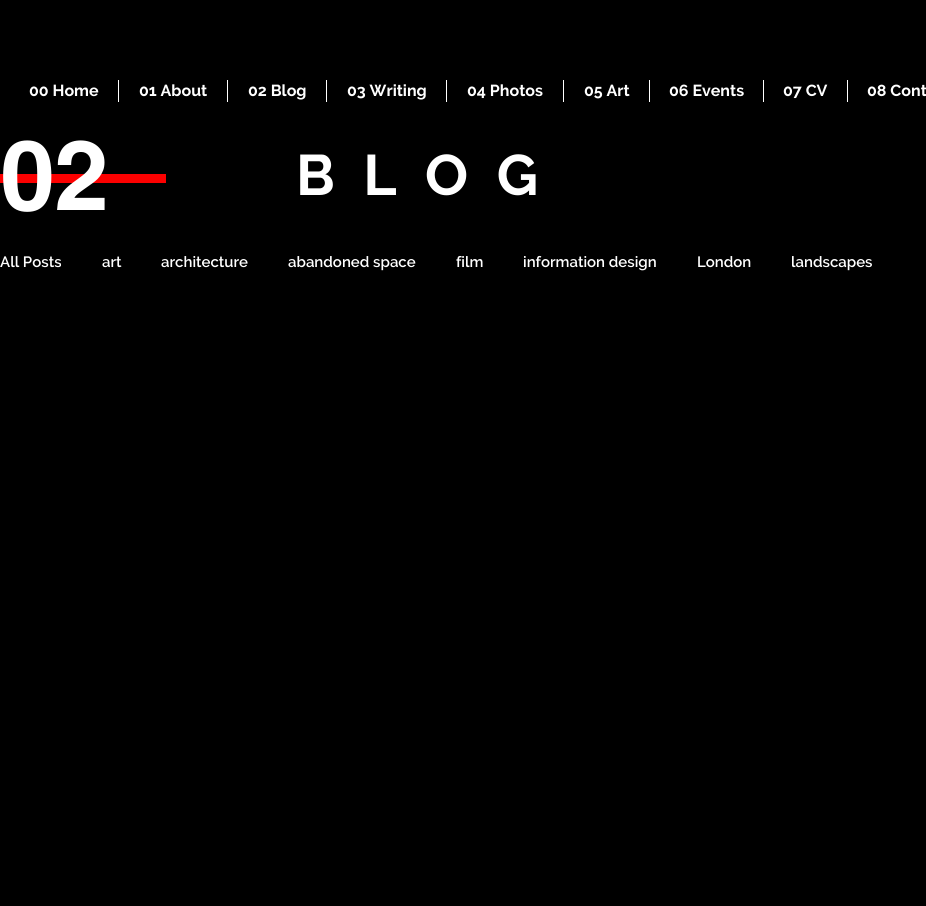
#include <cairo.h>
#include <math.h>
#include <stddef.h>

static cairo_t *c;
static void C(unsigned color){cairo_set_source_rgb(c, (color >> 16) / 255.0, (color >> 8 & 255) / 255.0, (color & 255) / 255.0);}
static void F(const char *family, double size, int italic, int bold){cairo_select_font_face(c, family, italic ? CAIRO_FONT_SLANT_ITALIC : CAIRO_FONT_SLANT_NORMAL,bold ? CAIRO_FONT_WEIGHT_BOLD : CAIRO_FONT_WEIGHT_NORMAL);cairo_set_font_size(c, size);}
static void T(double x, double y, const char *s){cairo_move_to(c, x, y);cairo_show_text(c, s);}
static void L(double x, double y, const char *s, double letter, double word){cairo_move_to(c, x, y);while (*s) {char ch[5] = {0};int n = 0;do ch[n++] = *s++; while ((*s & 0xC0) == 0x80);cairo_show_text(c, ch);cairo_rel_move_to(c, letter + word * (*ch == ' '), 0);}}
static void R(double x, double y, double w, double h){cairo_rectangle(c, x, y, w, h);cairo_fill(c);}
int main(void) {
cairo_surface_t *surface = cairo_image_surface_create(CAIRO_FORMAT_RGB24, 926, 906);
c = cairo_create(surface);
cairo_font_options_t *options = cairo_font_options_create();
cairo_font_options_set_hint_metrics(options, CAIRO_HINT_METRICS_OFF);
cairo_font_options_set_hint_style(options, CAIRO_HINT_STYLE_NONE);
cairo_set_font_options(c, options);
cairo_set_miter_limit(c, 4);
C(0x000000);
cairo_paint(c);
F("Raleway",16,0,1);
C(0xffffff);
T(29,96,"00 Home");
R(118,80,1,22);
T(139,96,"01 About");
R(227,80,1,22);
T(248,96,"02 Blog");
R(326,80,1,22);
T(347,96,"03 Writing");
R(446,80,1,22);
T(467,96,"04 Photos");
R(563,80,1,22);
T(584,96,"05 Art");
R(649,80,1,22);
T(669,96,"06 Events");
R(763,80,1,22);
T(783,96,"07 CV");
R(847,80,1,22);
T(867,96,"08 Cont");
C(0xfc0000);
R(0,174,166,9);
F("helvetica",98,0,1);
C(0xffffff);
T(0,210,"02");
F("Raleway",57,0,1);
L(296,195,"BLOG",28.5,0);
F("Raleway SemiBold",15,0,0);
T(0,267,"All Posts");
T(102,267,"art");
T(161,267,"architecture");
T(288,267,"abandoned space");
T(456,267,"film");
T(523,267,"information design");
T(697,267,"London");
T(791,267,"landscapes");
cairo_surface_write_to_png(surface, "o.png");
cairo_font_options_destroy(options);
cairo_destroy(c);
cairo_surface_destroy(surface);
return 0;
}
